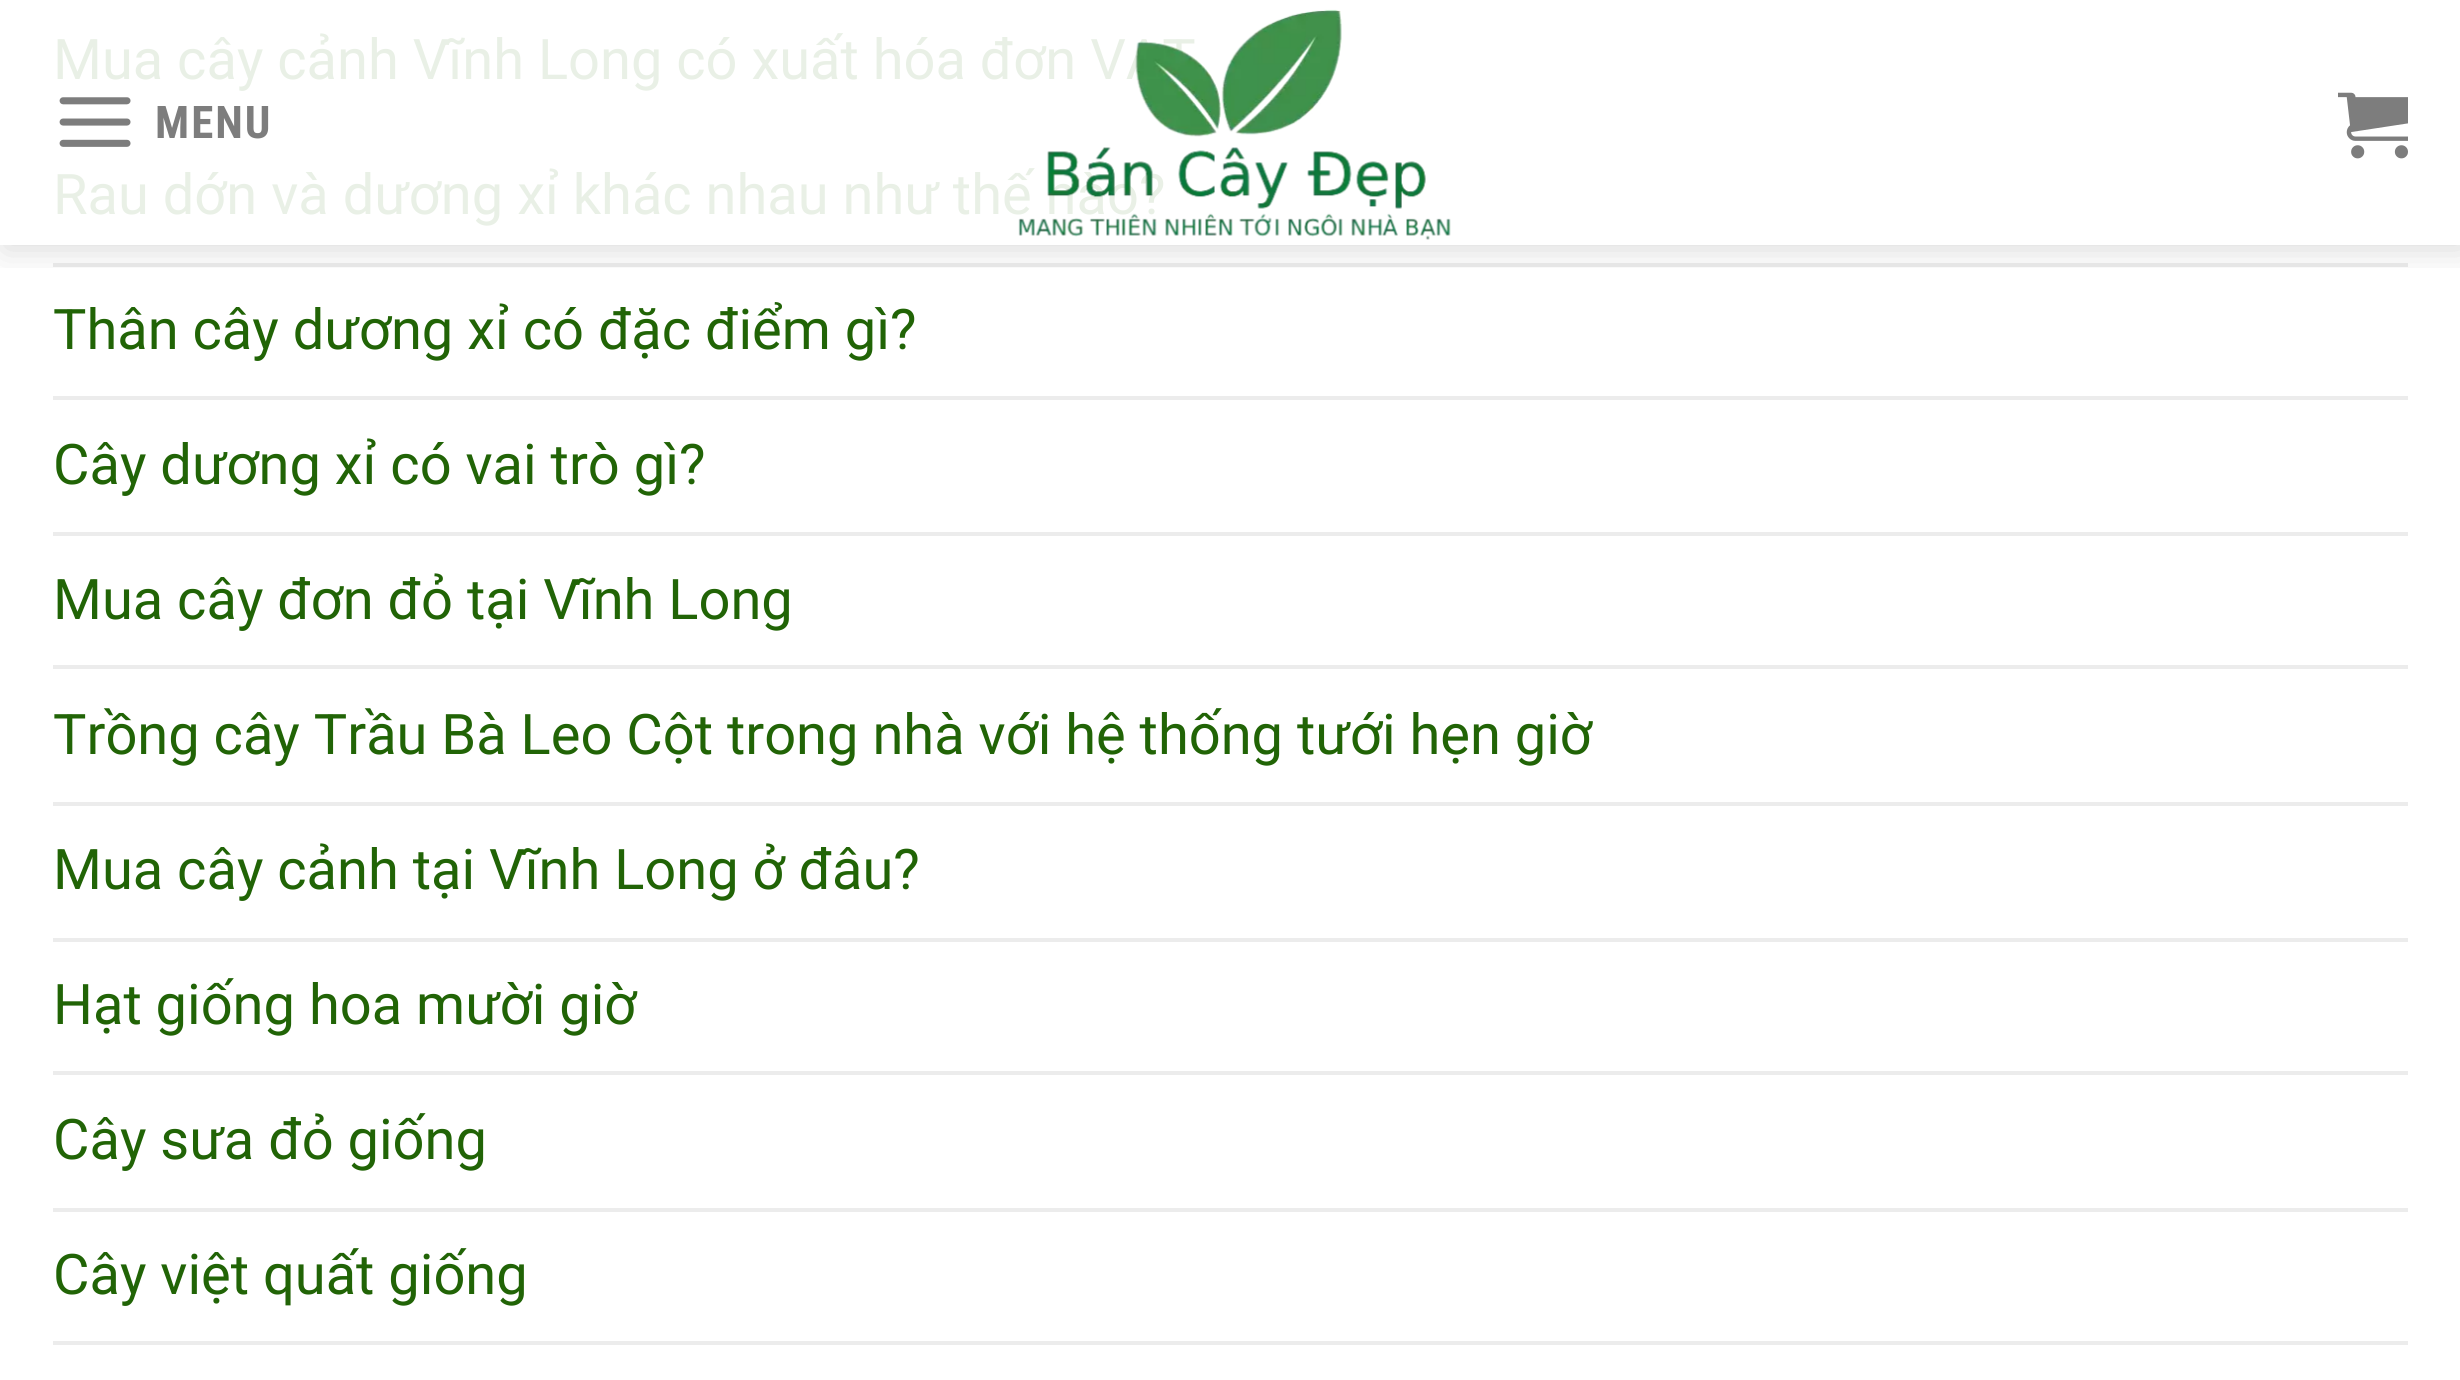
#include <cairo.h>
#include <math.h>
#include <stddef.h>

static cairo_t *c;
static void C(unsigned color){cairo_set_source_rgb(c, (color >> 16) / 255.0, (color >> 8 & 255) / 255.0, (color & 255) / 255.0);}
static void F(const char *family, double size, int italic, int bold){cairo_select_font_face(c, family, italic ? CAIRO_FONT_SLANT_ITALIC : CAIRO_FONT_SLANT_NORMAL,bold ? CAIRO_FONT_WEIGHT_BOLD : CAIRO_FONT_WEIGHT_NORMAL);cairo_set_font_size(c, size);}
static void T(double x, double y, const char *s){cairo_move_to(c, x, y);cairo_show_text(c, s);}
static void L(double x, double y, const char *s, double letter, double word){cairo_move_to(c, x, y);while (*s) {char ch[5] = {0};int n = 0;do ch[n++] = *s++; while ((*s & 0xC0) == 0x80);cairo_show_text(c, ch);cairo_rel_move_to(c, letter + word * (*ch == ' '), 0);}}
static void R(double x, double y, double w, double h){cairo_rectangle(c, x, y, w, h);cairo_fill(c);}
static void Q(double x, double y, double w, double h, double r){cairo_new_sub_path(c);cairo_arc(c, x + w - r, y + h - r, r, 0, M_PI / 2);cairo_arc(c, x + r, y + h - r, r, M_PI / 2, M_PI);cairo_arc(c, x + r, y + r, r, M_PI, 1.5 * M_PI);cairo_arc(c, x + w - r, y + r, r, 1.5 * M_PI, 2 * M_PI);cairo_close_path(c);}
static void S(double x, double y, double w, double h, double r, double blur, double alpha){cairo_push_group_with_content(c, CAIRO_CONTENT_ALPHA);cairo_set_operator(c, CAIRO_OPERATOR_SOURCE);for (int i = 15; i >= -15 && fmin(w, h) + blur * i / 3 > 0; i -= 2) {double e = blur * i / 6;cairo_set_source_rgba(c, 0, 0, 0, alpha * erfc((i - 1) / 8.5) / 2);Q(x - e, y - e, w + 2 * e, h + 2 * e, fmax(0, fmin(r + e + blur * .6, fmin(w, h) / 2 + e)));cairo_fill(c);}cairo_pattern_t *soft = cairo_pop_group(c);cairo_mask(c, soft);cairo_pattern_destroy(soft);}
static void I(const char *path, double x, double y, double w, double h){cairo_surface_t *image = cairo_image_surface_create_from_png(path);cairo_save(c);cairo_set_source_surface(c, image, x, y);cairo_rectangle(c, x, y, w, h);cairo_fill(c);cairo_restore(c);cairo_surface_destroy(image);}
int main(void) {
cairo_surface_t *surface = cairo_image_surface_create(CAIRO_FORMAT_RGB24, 2460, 1380);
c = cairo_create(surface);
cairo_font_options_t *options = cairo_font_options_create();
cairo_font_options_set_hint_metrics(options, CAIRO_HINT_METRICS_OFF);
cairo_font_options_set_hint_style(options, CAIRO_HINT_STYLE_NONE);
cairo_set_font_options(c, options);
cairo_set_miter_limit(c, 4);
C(0xffffff);
cairo_paint(c);
F("Roboto",56,0,0);
C(0xe9f0e6);
T(53,79,"Mua cây cảnh Vĩnh Long có xuất hóa đơn VAT");
T(53,214,"Rau dớn và dương xỉ khác nhau như thế nào?");
C(0xececec);
R(53,263,2355,4);
C(0x216406);
T(53,349,"Thân cây dương xỉ có đặc điểm gì?");
C(0xececec);
R(53,396,2355,4);
C(0x216406);
T(53,484,"Cây dương xỉ có vai trò gì?");
C(0xececec);
R(53,532,2355,4);
C(0x216406);
T(53,619,"Mua cây đơn đỏ tại Vĩnh Long");
C(0xececec);
R(53,665,2355,4);
C(0x216406);
T(53,754,"Trồng cây Trầu Bà Leo Cột trong nhà với hệ thống tưới hẹn giờ");
C(0xececec);
R(53,802,2355,4);
C(0x216406);
T(53,889,"Mua cây cảnh tại Vĩnh Long ở đâu?");
C(0xececec);
R(53,938,2355,4);
C(0x216406);
T(53,1024,"Hạt giống hoa mười giờ");
C(0xececec);
R(53,1071,2355,4);
C(0x216406);
T(53,1159,"Cây sưa đỏ giống");
C(0xececec);
R(53,1208,2355,4);
C(0x216406);
T(53,1294,"Cây việt quất giống");
C(0xececec);
R(53,1341,2355,4);
cairo_save(c);
cairo_rectangle(c,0,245,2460,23);
cairo_clip(c);
C(0x000000);
S(4,4,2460,245,0,17.5,.15);
cairo_restore(c);
I("1.png",59,97,72,50);
F("Roboto Condensed",45,0,1);
C(0x7d7d7d);
L(155,138,"MENU",2,0);
I("2.png",1018,9,433,231);
I("3.png",2338,92,70,67);
cairo_surface_write_to_png(surface, "o.png");
cairo_font_options_destroy(options);
cairo_destroy(c);
cairo_surface_destroy(surface);
return 0;
}
